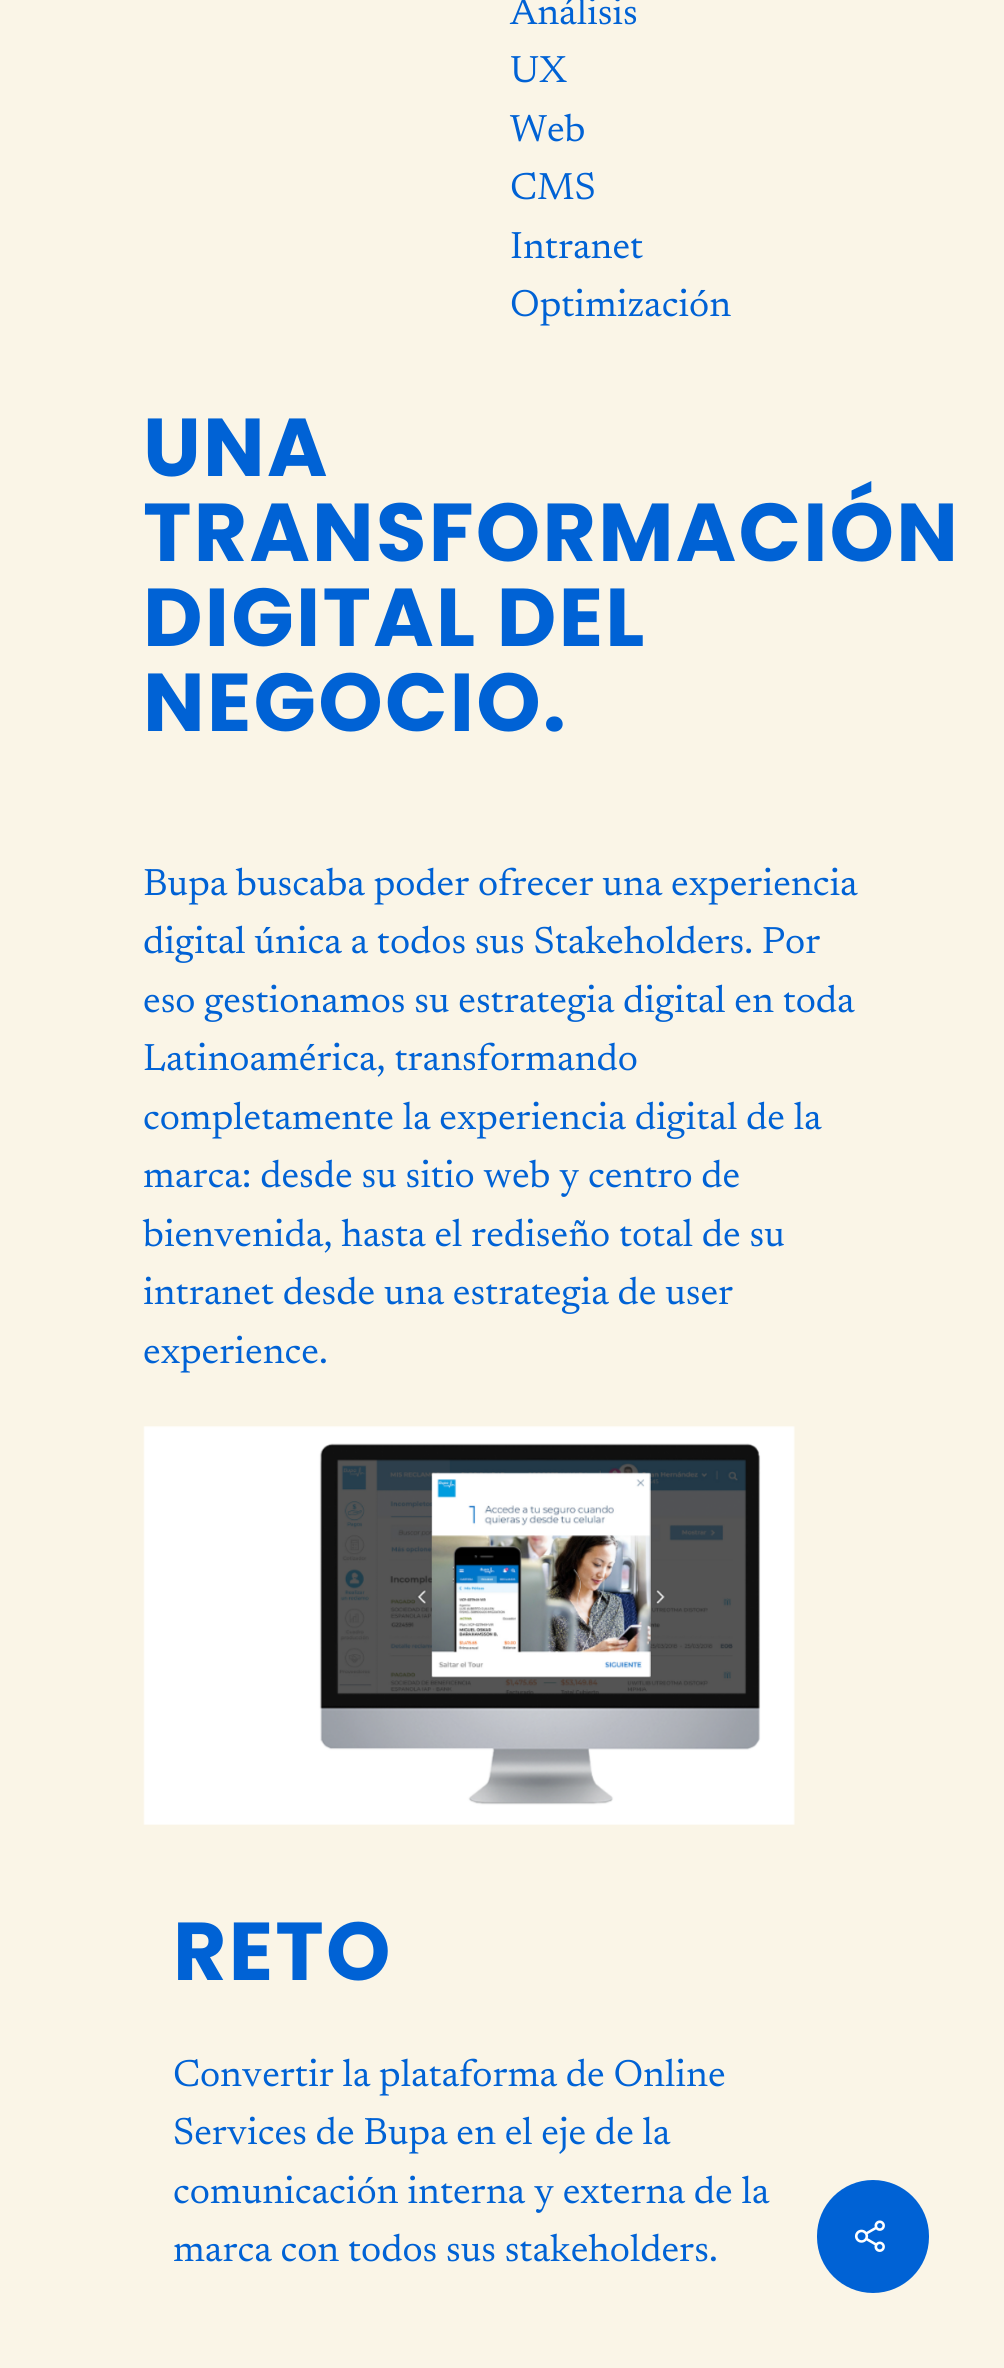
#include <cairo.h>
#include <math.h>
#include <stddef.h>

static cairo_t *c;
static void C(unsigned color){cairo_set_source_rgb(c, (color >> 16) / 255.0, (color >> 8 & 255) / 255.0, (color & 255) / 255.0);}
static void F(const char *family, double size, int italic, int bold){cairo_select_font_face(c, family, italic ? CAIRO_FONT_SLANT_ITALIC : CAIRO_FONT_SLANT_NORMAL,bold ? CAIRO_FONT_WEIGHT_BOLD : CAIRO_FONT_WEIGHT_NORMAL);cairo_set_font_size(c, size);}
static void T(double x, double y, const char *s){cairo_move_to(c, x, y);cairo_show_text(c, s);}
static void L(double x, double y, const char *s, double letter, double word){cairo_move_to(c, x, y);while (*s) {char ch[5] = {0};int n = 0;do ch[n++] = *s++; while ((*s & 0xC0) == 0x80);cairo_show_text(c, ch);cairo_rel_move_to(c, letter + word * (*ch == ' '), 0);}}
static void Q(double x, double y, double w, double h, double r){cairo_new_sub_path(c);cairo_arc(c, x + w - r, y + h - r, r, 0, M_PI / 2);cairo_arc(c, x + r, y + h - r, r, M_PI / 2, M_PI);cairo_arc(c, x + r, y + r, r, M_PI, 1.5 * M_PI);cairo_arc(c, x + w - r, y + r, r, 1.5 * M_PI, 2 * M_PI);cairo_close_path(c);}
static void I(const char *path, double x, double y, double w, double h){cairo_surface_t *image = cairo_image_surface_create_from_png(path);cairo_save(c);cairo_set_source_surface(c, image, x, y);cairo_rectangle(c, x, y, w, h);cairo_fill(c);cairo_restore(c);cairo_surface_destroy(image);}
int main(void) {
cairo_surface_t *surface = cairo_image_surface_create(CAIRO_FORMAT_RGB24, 1004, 2368);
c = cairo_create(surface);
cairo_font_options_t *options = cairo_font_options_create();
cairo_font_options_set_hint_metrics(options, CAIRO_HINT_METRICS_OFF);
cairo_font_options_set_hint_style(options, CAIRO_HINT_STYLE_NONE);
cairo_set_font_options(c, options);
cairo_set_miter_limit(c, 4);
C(0xfaf5e7);
cairo_paint(c);
F("Newsreader",38.25,0,0);
C(0x0062d5);
T(510,24,"Análisis");
T(510,82,"UX");
T(510,141,"Web");
T(510,199,"CMS");
T(510,258,"Intranet");
T(510,316,"Optimización");
F("Poppins",82,0,1);
L(143,476,"UNA",2.25,0);
L(143,561,"TRANSFORMACIÓN",2.25,0);
L(143,646,"DIGITAL DEL",2.25,0);
L(143,731,"NEGOCIO.",2.25,0);
F("Newsreader",38.25,0,0);
T(143,895,"Bupa buscaba poder ofrecer una experiencia");
T(143,953,"digital única a todos sus Stakeholders. Por");
T(143,1012,"eso gestionamos su estrategia digital en toda");
T(143,1070,"Latinoamérica, transformando");
T(143,1129,"completamente la experiencia digital de la");
T(143,1187,"marca: desde su sitio web y centro de");
T(143,1246,"bienvenida, hasta el rediseño total de su");
T(143,1304,"intranet desde una estrategia de user");
T(143,1363,"experience.");
I("1.png",143,1426,652,399);
F("Poppins",82,0,1);
L(173,1980,"RETO",2.25,0);
F("Newsreader",38.25,0,0);
T(173,2086,"Convertir la plataforma de Online");
T(173,2144,"Services de Bupa en el eje de la");
T(173,2203,"comunicación interna y externa de la");
T(173,2261,"marca con todos sus stakeholders.");
Q(817,2180,112,113,56);
cairo_fill(c);
I("2.png",854,2220,31,32);
cairo_surface_write_to_png(surface, "o.png");
cairo_font_options_destroy(options);
cairo_destroy(c);
cairo_surface_destroy(surface);
return 0;
}
